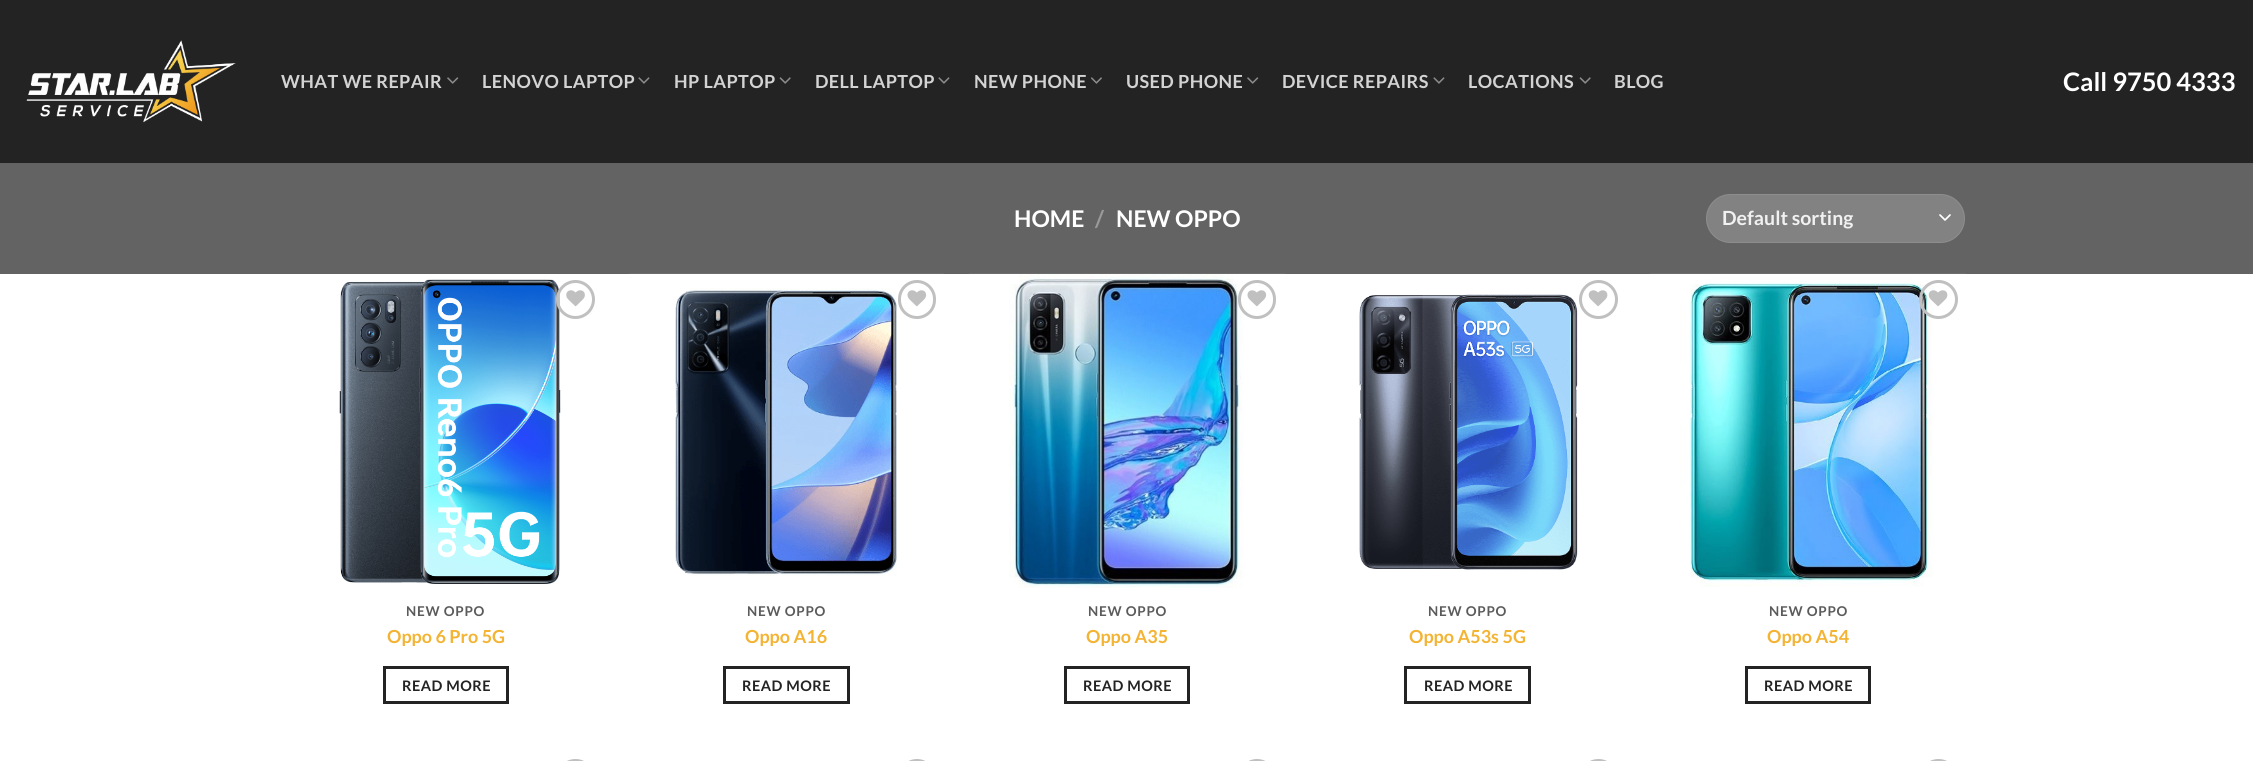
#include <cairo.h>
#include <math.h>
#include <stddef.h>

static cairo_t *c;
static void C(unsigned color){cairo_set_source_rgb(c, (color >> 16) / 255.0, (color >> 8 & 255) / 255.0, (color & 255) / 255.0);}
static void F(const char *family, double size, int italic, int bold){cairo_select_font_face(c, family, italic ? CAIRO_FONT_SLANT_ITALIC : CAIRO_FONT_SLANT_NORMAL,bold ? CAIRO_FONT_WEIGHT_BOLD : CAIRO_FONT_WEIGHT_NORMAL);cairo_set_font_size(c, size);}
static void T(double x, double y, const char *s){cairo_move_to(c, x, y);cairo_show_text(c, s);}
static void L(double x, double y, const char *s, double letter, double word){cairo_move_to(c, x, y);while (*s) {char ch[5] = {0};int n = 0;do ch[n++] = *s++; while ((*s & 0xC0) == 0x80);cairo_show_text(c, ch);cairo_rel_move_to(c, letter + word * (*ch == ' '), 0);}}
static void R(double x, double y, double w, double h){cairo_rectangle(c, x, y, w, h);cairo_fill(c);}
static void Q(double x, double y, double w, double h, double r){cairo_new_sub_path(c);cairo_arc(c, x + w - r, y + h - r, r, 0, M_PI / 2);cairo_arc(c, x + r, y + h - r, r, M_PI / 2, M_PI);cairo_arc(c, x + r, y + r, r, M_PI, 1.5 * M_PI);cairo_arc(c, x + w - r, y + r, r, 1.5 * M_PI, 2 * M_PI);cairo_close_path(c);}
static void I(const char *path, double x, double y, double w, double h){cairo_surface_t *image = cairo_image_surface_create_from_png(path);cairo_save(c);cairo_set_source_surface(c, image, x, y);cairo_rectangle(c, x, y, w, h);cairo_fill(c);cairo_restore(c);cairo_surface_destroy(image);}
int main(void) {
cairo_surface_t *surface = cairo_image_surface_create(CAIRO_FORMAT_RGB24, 2253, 761);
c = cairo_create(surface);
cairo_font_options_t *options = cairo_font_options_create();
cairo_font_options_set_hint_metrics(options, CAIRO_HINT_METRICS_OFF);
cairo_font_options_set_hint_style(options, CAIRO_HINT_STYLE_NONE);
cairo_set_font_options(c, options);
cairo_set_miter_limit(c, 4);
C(0x636363);
cairo_paint(c);
C(0x232323);
R(0,0,2253,163);
I("1.png",26,40,210,83);
F("Lato",18,0,1);
C(0xd3d3d3);
L(281,88,"WHAT WE REPAIR",.4,0);
I("2.png",447,77,12,7);
L(482,88,"LENOVO LAPTOP",.4,0);
I("3.png",638,77,12,7);
L(674,88,"HP LAPTOP",.4,0);
I("4.png",779,77,12,7);
L(815,88,"DELL LAPTOP",.4,0);
I("3.png",938,77,12,7);
L(974,88,"NEW PHONE",.4,0);
I("5.png",1091,77,11,7);
L(1126,88,"USED PHONE",.4,0);
I("2.png",1247,77,12,7);
L(1282,88,"DEVICE REPAIRS",.4,0);
I("3.png",1433,77,12,7);
L(1468,88,"LOCATIONS",.4,0);
I("4.png",1579,77,12,7);
L(1614,88,"BLOG",.4,0);
F("Lato",25.5,0,1);
C(0xffffff);
T(2063,91,"Call 9750 4333");
F("Lato",23,0,1);
T(1014,227,"HOME");
C(0x9a9a9a);
T(1095,227,"/");
C(0xffffff);
T(1116,227,"NEW OPPO");
C(0x828282);
Q(1706,194,259,49,24.5);
cairo_fill(c);
cairo_new_path(c);
cairo_move_to(c,1940,215);
cairo_line_to(c,1945,220);
cairo_line_to(c,1950,215);
C(0xffffff);
cairo_set_line_width(c,1.7);
cairo_set_line_cap(c,CAIRO_LINE_CAP_ROUND);
cairo_set_line_join(c,CAIRO_LINE_JOIN_ROUND);
cairo_stroke(c);
Q(1706.5,194.5,258,48,24);
cairo_set_source_rgba(c,1,1,1,0.09);
cairo_set_line_width(c,1);
cairo_set_line_cap(c,CAIRO_LINE_CAP_BUTT);
cairo_set_line_join(c,CAIRO_LINE_JOIN_MITER);
cairo_stroke(c);
F("Lato",19.5,0,1);
C(0xf1f1f1);
T(1722,225,"Default sorting");
C(0xffffff);
R(0,274,2253,487);
I("6.png",339,279,222,305);
cairo_arc(c,575.5,299.5,18,0,2 * M_PI);
C(0xc0c0c0);
cairo_set_line_width(c,3);
cairo_stroke(c);
I("7.png",566,290,19,17);
F("Lato",13.5,0,1);
C(0x5b5b5b);
L(406,616,"NEW OPPO",.75,0);
F("Lato",18,0,1);
C(0xf3b333);
T(387,643,"Oppo 6 Pro 5G");
cairo_rectangle(c,384.5,667.5,123,35);
C(0x232323);
cairo_stroke(c);
F("Lato",14.5,0,1);
L(402,691,"READ MORE",.5,0);
I("8.png",629,273,315,303);
Q(899.5,281.5,35,36,17.5);
C(0xc0c0c0);
cairo_stroke(c);
I("9.png",907,290,20,17);
F("Lato",13.5,0,1);
C(0x5b5b5b);
L(747,616,"NEW OPPO",.75,0);
F("Lato",18,0,1);
C(0xf3b333);
T(745,643,"Oppo A16");
cairo_rectangle(c,724.5,667.5,124,35);
C(0x232323);
cairo_stroke(c);
F("Lato",14.5,0,1);
L(742,691,"READ MORE",.5,0);
I("10.png",969,273,316,315);
Q(1239.5,281.5,35,36,17.5);
C(0xc0c0c0);
cairo_stroke(c);
I("9.png",1247,290,20,17);
F("Lato",13.5,0,1);
C(0x5b5b5b);
L(1088,616,"NEW OPPO",.75,0);
F("Lato",18,0,1);
C(0xf3b333);
T(1086,643,"Oppo A35");
cairo_rectangle(c,1065.5,667.5,123,35);
C(0x232323);
cairo_stroke(c);
F("Lato",14.5,0,1);
L(1083,691,"READ MORE",.5,0);
I("11.png",1359,294,219,276);
cairo_arc(c,1598.5,299.5,18,0,2 * M_PI);
C(0xc0c0c0);
cairo_stroke(c);
I("12.png",1588,290,20,17);
F("Lato",13.5,0,1);
C(0x5b5b5b);
L(1428,616,"NEW OPPO",.75,0);
F("Lato",18,0,1);
C(0xf3b333);
T(1409,643,"Oppo A53s 5G");
cairo_rectangle(c,1405.5,667.5,124,35);
C(0x232323);
cairo_stroke(c);
F("Lato",14.5,0,1);
L(1424,691,"READ MORE",.5,0);
I("13.png",1650,273,316,314);
cairo_arc(c,1938.5,299.5,18,0,2 * M_PI);
C(0xc0c0c0);
cairo_stroke(c);
I("14.png",1928,290,20,17);
F("Lato",13.5,0,1);
C(0x5b5b5b);
L(1769,616,"NEW OPPO",.75,0);
F("Lato",18,0,1);
C(0xf3b333);
T(1767,643,"Oppo A54");
cairo_rectangle(c,1746.5,667.5,123,35);
C(0x232323);
cairo_stroke(c);
F("Lato",14.5,0,1);
L(1764,691,"READ MORE",.5,0);
C(0xfbffff);
R(287,753,1,1);
Q(557.5,760.5,36,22,18);
C(0xc0c0c0);
cairo_stroke(c);
Q(899.5,760.5,35,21,17.5);
cairo_stroke(c);
Q(1239.5,760.5,35,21,17.5);
cairo_stroke(c);
Q(1580.5,760.5,36,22,18);
cairo_stroke(c);
Q(1920.5,760.5,36,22,18);
cairo_stroke(c);
cairo_surface_write_to_png(surface, "o.png");
cairo_font_options_destroy(options);
cairo_destroy(c);
cairo_surface_destroy(surface);
return 0;
}
